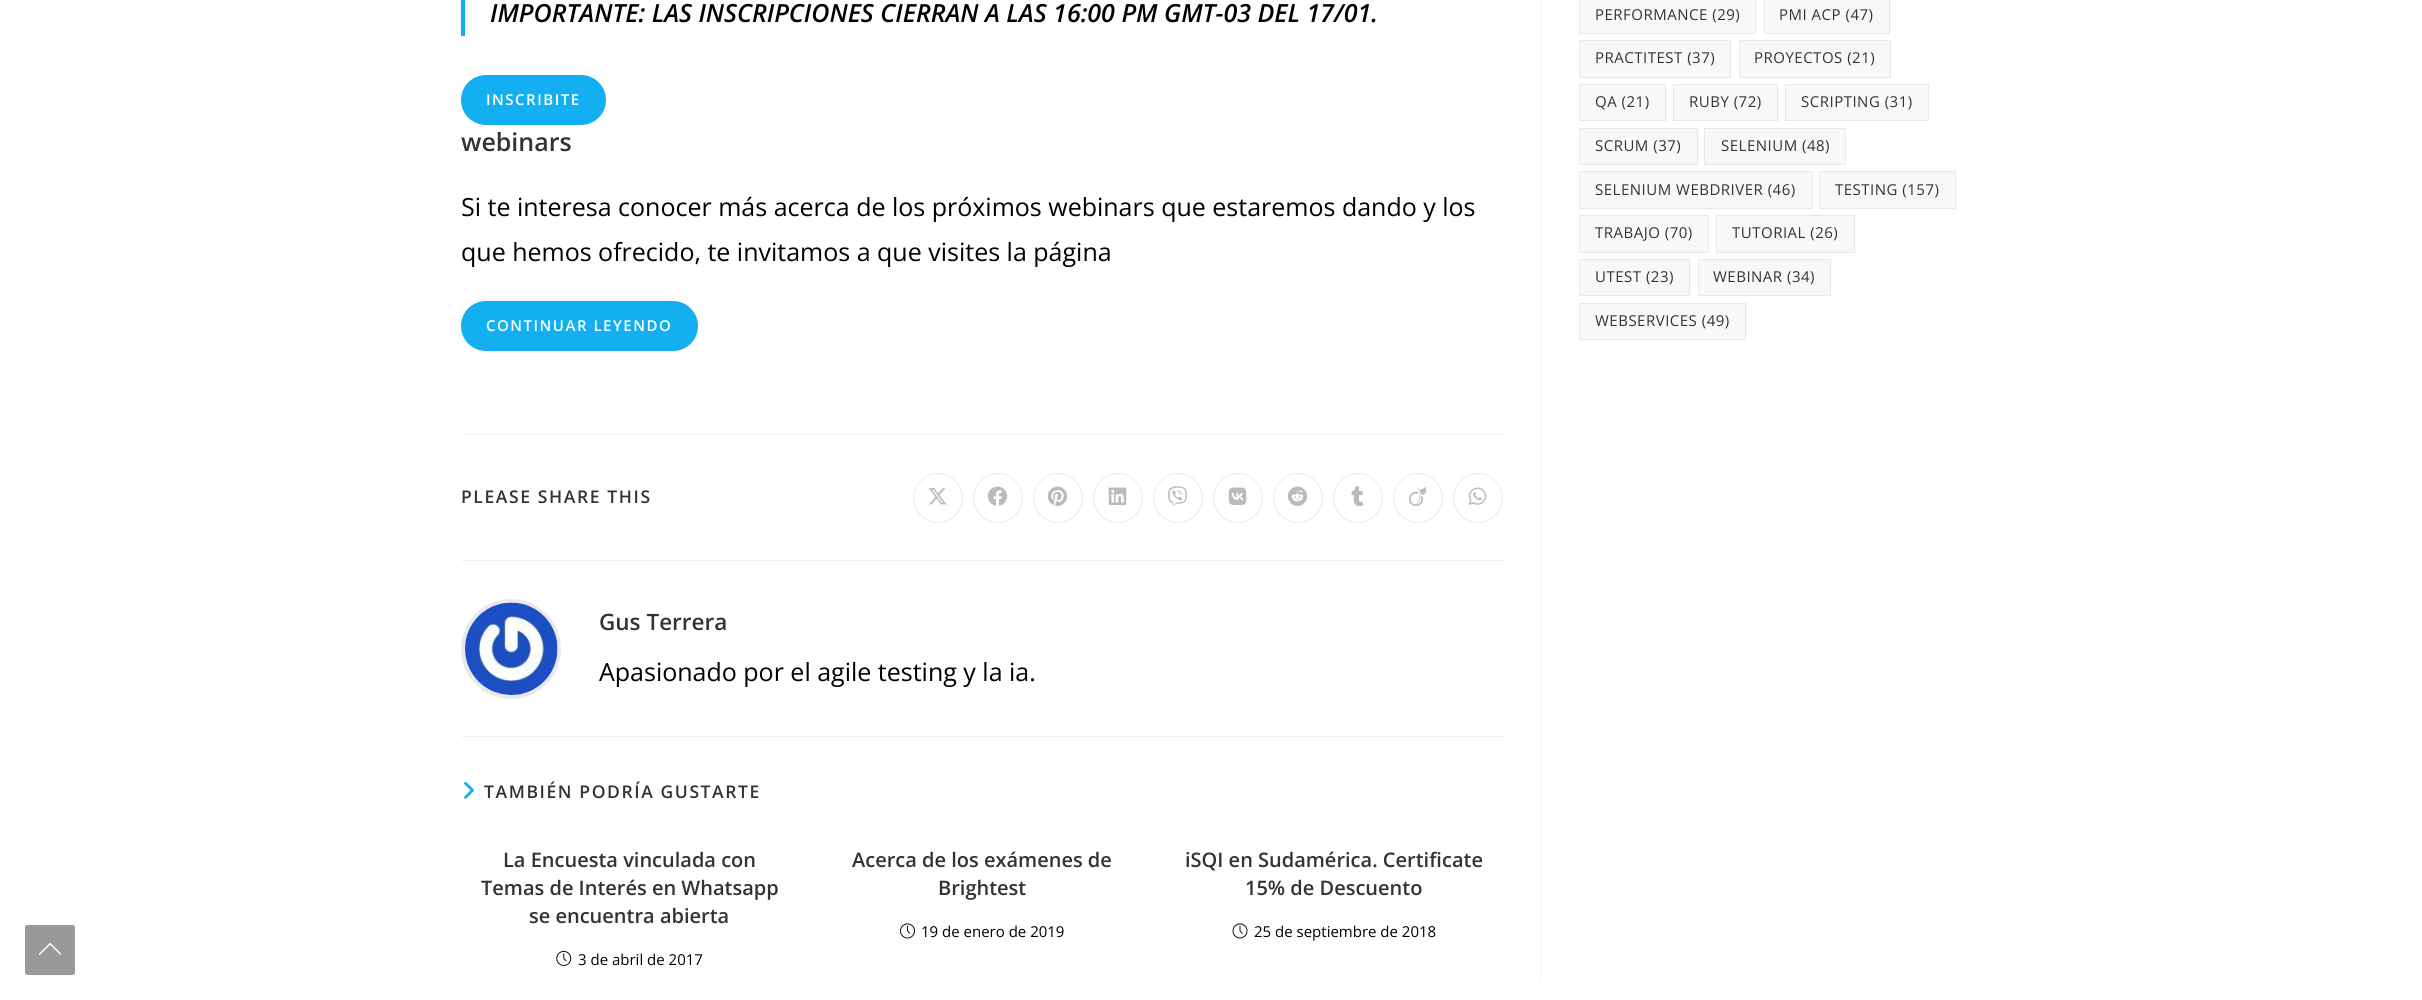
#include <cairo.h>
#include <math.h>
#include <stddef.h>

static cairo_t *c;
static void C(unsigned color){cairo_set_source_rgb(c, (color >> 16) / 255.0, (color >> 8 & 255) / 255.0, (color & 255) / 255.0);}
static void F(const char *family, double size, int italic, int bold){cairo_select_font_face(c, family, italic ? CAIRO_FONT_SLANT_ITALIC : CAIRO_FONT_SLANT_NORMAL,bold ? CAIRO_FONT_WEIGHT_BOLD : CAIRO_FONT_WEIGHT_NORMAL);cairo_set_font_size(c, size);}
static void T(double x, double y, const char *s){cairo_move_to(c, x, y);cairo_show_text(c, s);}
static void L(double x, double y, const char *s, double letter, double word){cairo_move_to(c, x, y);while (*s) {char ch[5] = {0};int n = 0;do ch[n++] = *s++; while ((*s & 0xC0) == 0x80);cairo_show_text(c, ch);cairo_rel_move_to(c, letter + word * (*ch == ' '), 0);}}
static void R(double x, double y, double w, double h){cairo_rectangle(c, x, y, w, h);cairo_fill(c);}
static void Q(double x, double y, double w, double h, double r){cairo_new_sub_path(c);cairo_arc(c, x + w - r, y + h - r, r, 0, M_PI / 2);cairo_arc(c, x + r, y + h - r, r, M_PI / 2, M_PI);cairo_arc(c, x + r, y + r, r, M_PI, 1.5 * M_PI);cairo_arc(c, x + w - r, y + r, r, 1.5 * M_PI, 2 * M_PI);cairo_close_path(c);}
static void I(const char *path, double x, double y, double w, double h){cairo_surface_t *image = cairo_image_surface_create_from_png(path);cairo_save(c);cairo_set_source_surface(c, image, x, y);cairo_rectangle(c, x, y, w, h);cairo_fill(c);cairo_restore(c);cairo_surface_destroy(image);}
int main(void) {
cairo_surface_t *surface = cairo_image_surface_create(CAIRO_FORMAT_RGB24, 2422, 1000);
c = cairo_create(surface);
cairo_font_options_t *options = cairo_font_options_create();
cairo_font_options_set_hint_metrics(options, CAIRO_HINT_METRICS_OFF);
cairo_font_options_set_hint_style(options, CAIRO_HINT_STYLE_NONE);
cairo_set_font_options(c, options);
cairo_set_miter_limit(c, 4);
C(0xffffff);
cairo_paint(c);
C(0x999999);
Q(25,925,50,50,2.5);
cairo_fill(c);
I("1.png",39,943,23,12);
C(0xf1f1f1);
R(1540,0,1,979);
C(0x13aff0);
R(461,0,4,36);
F("Open Sans SemiBold",25,1,0);
C(0x000000);
T(490,22,"IMPORTANTE: LAS INSCRIPCIONES CIERRAN A LAS 16:00 PM GMT-03 DEL 17/01.");
C(0x13aff0);
Q(461,75,145,50,25);
cairo_fill(c);
F("Open Sans SemiBold",15,0,0);
C(0xffffff);
L(486,105,"INSCRIBITE",1.5,0);
F("Open Sans SemiBold",25,0,0);
C(0x333333);
T(461,151,"webinars");
F("Open Sans",25,0,0);
C(0x000000);
T(461,216,"Si te interesa conocer más acerca de los próximos webinars que estaremos dando y los");
T(461,261,"que hemos ofrecido, te invitamos a que visites la página");
C(0x13aff0);
Q(461,301,237,50,25);
cairo_fill(c);
F("Open Sans SemiBold",15,0,0);
C(0xffffff);
L(486,331,"CONTINUAR LEYENDO",1.5,0);
C(0xf1f1f1);
R(461,434,1042,1);
F("Open Sans SemiBold",17.5,0,0);
C(0x333333);
L(461,503,"PLEASE SHARE THIS",1.6,0);
cairo_new_path(c);
cairo_arc(c,938,498,24.5,0,2 * M_PI);
C(0xe9e9e9);
cairo_set_line_width(c,1);
cairo_stroke(c);
I("2.png",928,488,19,17);
cairo_arc(c,998,498,24.5,0,2 * M_PI);
cairo_stroke(c);
I("3.png",988,486,20,20);
cairo_arc(c,1058,498,24.5,0,2 * M_PI);
cairo_stroke(c);
I("4.png",1048,486,20,20);
cairo_arc(c,1118,498,24.5,0,2 * M_PI);
cairo_stroke(c);
I("5.png",1108,487,19,18);
cairo_arc(c,1178,498,24.5,0,2 * M_PI);
cairo_stroke(c);
I("6.png",1168,486,19,20);
cairo_arc(c,1238,498,24.5,0,2 * M_PI);
cairo_stroke(c);
I("7.png",1228,487,19,18);
cairo_arc(c,1298,498,24.5,0,2 * M_PI);
cairo_stroke(c);
I("8.png",1288,486,20,20);
cairo_arc(c,1358,498,24.5,0,2 * M_PI);
cairo_stroke(c);
I("9.png",1351,486,13,20);
cairo_arc(c,1418,498,24.5,0,2 * M_PI);
cairo_stroke(c);
I("10.png",1409,486,17,20);
cairo_arc(c,1478,498,24.5,0,2 * M_PI);
cairo_stroke(c);
I("11.png",1468,487,19,18);
C(0xf1f1f1);
R(461,560,1042,1);
cairo_arc(c,511,649,48,0,2 * M_PI);
C(0xe9e9e9);
cairo_set_line_width(c,4);
cairo_stroke(c);
I("12.png",465,602,93,93);
F("Open Sans SemiBold",22.5,0,0);
C(0x333333);
T(599,630,"Gus Terrera");
F("Open Sans",25,0,0);
C(0x000000);
T(599,681,"Apasionado por el agile testing y la ia.");
C(0xf1f1f1);
R(461,736,1042,1);
I("13.png",464,781,10,18);
F("Open Sans SemiBold",17.5,0,0);
C(0x333333);
L(484,798,"TAMBIÉN PODRÍA GUSTARTE",1.6,0);
F("Open Sans SemiBold",20,0,0);
T(503,867,"La Encuesta vinculada con");
T(481,895,"Temas de Interés en Whatsapp");
T(529,923,"se encuentra abierta");
I("14.png",556,950,16,16);
F("Open Sans",15,0,0);
C(0x000000);
T(578,965,"3 de abril de 2017");
F("Open Sans SemiBold",20,0,0);
C(0x333333);
T(852,867,"Acerca de los exámenes de");
T(938,895,"Brightest");
I("15.png",900,923,15,16);
F("Open Sans",15,0,0);
C(0x000000);
T(921,937,"19 de enero de 2019");
F("Open Sans SemiBold",20,0,0);
C(0x333333);
T(1185,867,"iSQI en Sudamérica. Certificate");
T(1245,895,"15% de Descuento");
I("16.png",1232,923,16,16);
F("Open Sans",15,0,0);
C(0x000000);
T(1254,937,"25 de septiembre de 2018");
C(0xf8f8f8);
cairo_rectangle(c,1579.5,-.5,176,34);
cairo_fill_preserve(c);
C(0xe9e9e9);
cairo_set_line_width(c,1);
cairo_stroke(c);
C(0x333333);
L(1595,20,"PERFORMANCE (29)",.5,0);
C(0xf8f8f8);
cairo_rectangle(c,1764.5,-.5,125,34);
cairo_fill_preserve(c);
C(0xe9e9e9);
cairo_stroke(c);
C(0x333333);
L(1779,20,"PMI ACP (47)",.5,0);
C(0xf8f8f8);
cairo_rectangle(c,1579.5,40.5,151,37);
cairo_fill_preserve(c);
C(0xe9e9e9);
cairo_stroke(c);
C(0x333333);
L(1595,63,"PRACTITEST (37)",.5,0);
C(0xf8f8f8);
cairo_rectangle(c,1739.5,40.5,151,37);
cairo_fill_preserve(c);
C(0xe9e9e9);
cairo_stroke(c);
C(0x333333);
L(1754,63,"PROYECTOS (21)",.5,0);
C(0xf8f8f8);
cairo_rectangle(c,1579.5,84.5,86,36);
cairo_fill_preserve(c);
C(0xe9e9e9);
cairo_stroke(c);
C(0x333333);
L(1595,107,"QA (21)",.5,0);
C(0xf8f8f8);
cairo_rectangle(c,1673.5,84.5,104,36);
cairo_fill_preserve(c);
C(0xe9e9e9);
cairo_stroke(c);
C(0x333333);
L(1689,107,"RUBY (72)",.5,0);
C(0xf8f8f8);
cairo_rectangle(c,1785.5,84.5,143,36);
cairo_fill_preserve(c);
C(0xe9e9e9);
cairo_stroke(c);
C(0x333333);
L(1801,107,"SCRIPTING (31)",.5,0);
C(0xf8f8f8);
cairo_rectangle(c,1579.5,128.5,118,36);
cairo_fill_preserve(c);
C(0xe9e9e9);
cairo_stroke(c);
C(0x333333);
L(1595,151,"SCRUM (37)",.5,0);
C(0xf8f8f8);
cairo_rectangle(c,1704.5,128.5,141,36);
cairo_fill_preserve(c);
C(0xe9e9e9);
cairo_stroke(c);
C(0x333333);
L(1721,151,"SELENIUM (48)",.5,0);
C(0xf8f8f8);
cairo_rectangle(c,1579.5,171.5,233,37);
cairo_fill_preserve(c);
C(0xe9e9e9);
cairo_stroke(c);
C(0x333333);
L(1595,195,"SELENIUM WEBDRIVER (46)",.5,0);
C(0xf8f8f8);
cairo_rectangle(c,1819.5,171.5,136,37);
cairo_fill_preserve(c);
C(0xe9e9e9);
cairo_stroke(c);
C(0x333333);
L(1835,195,"TESTING (157)",.5,0);
C(0xf8f8f8);
cairo_rectangle(c,1579.5,215.5,129,37);
cairo_fill_preserve(c);
C(0xe9e9e9);
cairo_stroke(c);
C(0x333333);
L(1595,238,"TRABAJO (70)",.5,0);
C(0xf8f8f8);
cairo_rectangle(c,1716.5,215.5,138,37);
cairo_fill_preserve(c);
C(0xe9e9e9);
cairo_stroke(c);
C(0x333333);
L(1732,238,"TUTORIAL (26)",.5,0);
C(0xf8f8f8);
cairo_rectangle(c,1579.5,259.5,110,36);
cairo_fill_preserve(c);
C(0xe9e9e9);
cairo_stroke(c);
C(0x333333);
L(1595,282,"UTEST (23)",.5,0);
C(0xf8f8f8);
cairo_rectangle(c,1698.5,259.5,132,36);
cairo_fill_preserve(c);
C(0xe9e9e9);
cairo_stroke(c);
C(0x333333);
L(1713,282,"WEBINAR (34)",.5,0);
C(0xf8f8f8);
cairo_rectangle(c,1579.5,303.5,166,36);
cairo_fill_preserve(c);
C(0xe9e9e9);
cairo_stroke(c);
C(0x333333);
L(1595,326,"WEBSERVICES (49)",.5,0);
cairo_surface_write_to_png(surface, "o.png");
cairo_font_options_destroy(options);
cairo_destroy(c);
cairo_surface_destroy(surface);
return 0;
}
